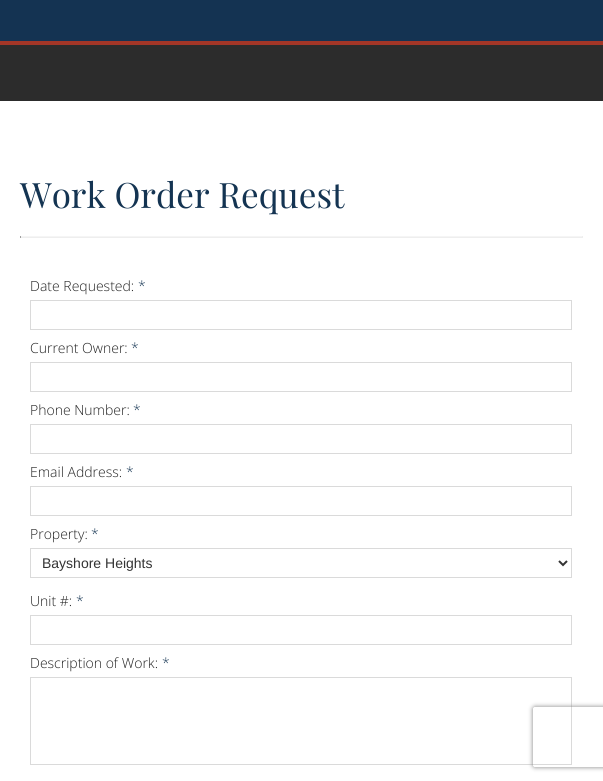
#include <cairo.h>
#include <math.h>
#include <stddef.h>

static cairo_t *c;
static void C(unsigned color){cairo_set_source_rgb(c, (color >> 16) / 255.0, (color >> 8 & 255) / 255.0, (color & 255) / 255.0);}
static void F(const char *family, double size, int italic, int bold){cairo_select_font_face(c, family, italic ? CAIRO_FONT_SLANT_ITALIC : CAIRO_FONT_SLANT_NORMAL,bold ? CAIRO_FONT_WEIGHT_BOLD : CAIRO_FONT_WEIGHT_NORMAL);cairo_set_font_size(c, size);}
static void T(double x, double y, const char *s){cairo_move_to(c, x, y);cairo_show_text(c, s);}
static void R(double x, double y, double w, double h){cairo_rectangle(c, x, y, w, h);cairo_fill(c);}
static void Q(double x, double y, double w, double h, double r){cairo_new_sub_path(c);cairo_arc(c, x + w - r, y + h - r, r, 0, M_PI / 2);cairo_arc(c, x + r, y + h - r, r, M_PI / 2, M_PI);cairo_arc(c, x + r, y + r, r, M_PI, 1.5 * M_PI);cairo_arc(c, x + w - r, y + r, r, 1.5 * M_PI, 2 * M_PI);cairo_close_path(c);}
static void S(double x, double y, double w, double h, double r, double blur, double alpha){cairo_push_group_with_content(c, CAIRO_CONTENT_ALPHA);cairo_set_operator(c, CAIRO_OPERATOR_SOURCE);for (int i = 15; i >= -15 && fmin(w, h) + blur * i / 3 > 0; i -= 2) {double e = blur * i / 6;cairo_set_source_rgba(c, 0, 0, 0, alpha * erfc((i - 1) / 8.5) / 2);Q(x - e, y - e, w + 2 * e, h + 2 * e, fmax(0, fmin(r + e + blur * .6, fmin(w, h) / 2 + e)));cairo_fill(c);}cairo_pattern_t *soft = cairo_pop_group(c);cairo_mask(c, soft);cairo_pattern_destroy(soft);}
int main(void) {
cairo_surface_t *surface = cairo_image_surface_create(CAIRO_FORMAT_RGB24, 603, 781);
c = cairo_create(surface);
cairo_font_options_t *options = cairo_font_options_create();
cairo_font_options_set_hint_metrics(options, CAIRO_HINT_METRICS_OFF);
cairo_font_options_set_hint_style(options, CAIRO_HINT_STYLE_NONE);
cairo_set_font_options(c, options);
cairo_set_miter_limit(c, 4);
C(0x2c2c2c);
cairo_paint(c);
C(0x143352);
R(0,0,603,41);
C(0xa33627);
R(0,41,603,4);
C(0xffffff);
R(0,101,603,680);
F("Playfair Display",35,0,0);
C(0x143452);
T(20,208,"Work Order Request");
C(0xf5f5f5);
R(20,236,563,1);
C(0xeeeeee);
R(582,236,1,2);
R(20,237,563,1);
C(0x9f9f9f);
R(20,236,1,2);
F("Open Sans Light",14,0,0);
C(0x232323);
T(30,291,"Date Requested:");
C(0x143452);
T(138,291,"*");
cairo_rectangle(c,30.5,300.5,541,29);
C(0xdadada);
cairo_set_line_width(c,1);
cairo_stroke(c);
C(0x232323);
T(30,353,"Current Owner:");
C(0x143452);
T(131,353,"*");
cairo_rectangle(c,30.5,362.5,541,29);
C(0xdadada);
cairo_stroke(c);
C(0x232323);
T(30,415,"Phone Number:");
C(0x143452);
T(133,415,"*");
cairo_rectangle(c,30.5,424.5,541,29);
C(0xdadada);
cairo_stroke(c);
C(0x232323);
T(30,477,"Email Address:");
C(0x143452);
T(126,477,"*");
cairo_rectangle(c,30.5,486.5,541,29);
C(0xdadada);
cairo_stroke(c);
C(0x232323);
T(30,539,"Property:");
C(0x143452);
T(91,539,"*");
cairo_rectangle(c,30.5,548.5,541,29);
C(0xdadada);
cairo_stroke(c);
cairo_new_path(c);
cairo_move_to(c,559,561);
cairo_line_to(c,563,565);
cairo_line_to(c,567,561);
C(0x333333);
cairo_set_line_width(c,2);
cairo_stroke(c);
F("Liberation Sans",14,0,0);
T(42,568,"Bayshore Heights");
F("Open Sans Light",14,0,0);
C(0x232323);
T(30,606,"Unit #:");
C(0x143452);
T(76,606,"*");
cairo_rectangle(c,30.5,615.5,541,29);
C(0xdadada);
cairo_set_line_width(c,1);
cairo_stroke(c);
C(0x232323);
T(30,668,"Description of Work:");
C(0x143452);
T(162,668,"*");
cairo_rectangle(c,30.5,677.5,541,87);
C(0xdadada);
cairo_stroke(c);
cairo_save(c);
cairo_set_fill_rule(c,CAIRO_FILL_RULE_EVEN_ODD);
cairo_new_path(c);
cairo_move_to(c,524,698);
cairo_line_to(c,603,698);
cairo_line_to(c,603,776);
cairo_line_to(c,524,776);
cairo_close_path(c);
cairo_move_to(c,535,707);
cairo_line_to(c,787,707);
cairo_curve_to(c,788,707,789,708,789,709);
cairo_line_to(c,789,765);
cairo_curve_to(c,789,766,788,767,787,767);
cairo_line_to(c,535,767);
cairo_curve_to(c,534,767,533,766,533,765);
cairo_line_to(c,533,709);
cairo_curve_to(c,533,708,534,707,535,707);
cairo_close_path(c);
cairo_clip(c);
C(0x808080);
S(533,707,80,60,2,2.5,1);
cairo_restore(c);
cairo_surface_write_to_png(surface, "o.png");
cairo_font_options_destroy(options);
cairo_destroy(c);
cairo_surface_destroy(surface);
return 0;
}
